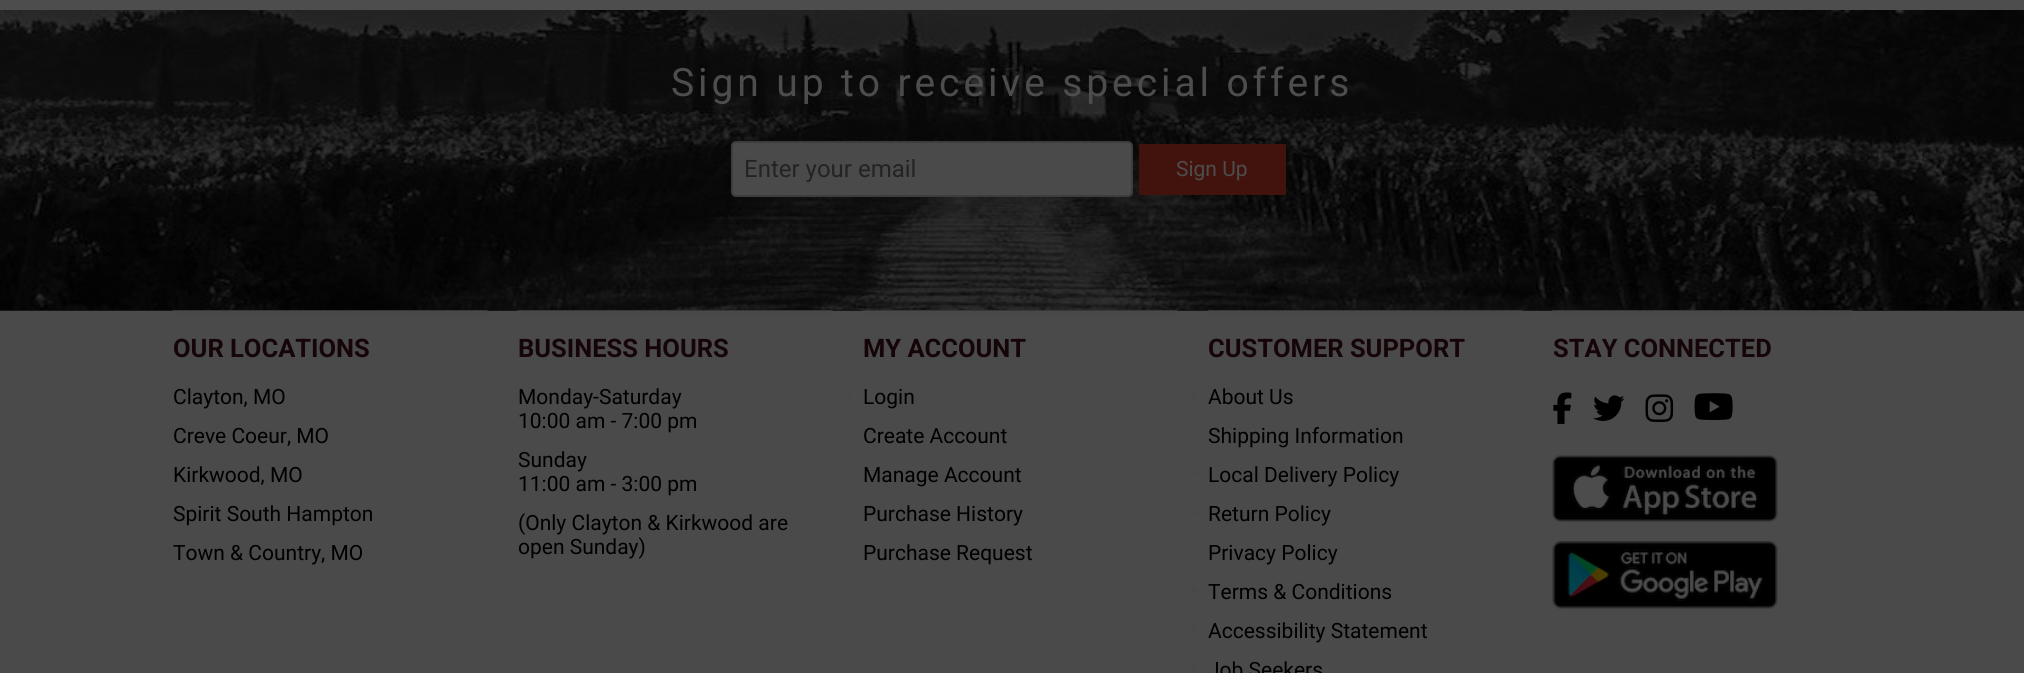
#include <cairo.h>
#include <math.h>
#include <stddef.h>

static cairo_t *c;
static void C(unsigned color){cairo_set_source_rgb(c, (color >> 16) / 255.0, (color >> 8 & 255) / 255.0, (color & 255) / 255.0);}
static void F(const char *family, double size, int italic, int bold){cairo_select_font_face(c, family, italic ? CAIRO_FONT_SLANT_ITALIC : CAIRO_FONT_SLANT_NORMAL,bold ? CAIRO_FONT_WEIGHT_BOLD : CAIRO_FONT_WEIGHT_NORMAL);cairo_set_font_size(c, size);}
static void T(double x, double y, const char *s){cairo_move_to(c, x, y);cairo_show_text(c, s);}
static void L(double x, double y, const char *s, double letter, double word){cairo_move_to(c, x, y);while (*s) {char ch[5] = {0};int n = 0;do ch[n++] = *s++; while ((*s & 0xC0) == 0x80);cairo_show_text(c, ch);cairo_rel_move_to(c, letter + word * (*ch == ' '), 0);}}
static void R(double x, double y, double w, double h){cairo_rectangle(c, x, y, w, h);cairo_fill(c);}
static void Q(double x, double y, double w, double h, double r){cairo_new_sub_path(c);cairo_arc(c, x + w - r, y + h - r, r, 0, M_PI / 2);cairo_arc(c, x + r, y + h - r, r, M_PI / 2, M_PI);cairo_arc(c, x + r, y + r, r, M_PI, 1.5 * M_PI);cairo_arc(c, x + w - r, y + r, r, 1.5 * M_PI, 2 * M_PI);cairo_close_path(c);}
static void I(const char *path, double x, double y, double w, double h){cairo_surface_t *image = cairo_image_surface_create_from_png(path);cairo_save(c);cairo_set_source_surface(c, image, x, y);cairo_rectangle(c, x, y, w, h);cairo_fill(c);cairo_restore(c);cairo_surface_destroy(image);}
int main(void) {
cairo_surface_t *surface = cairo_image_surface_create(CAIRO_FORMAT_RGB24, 2024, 673);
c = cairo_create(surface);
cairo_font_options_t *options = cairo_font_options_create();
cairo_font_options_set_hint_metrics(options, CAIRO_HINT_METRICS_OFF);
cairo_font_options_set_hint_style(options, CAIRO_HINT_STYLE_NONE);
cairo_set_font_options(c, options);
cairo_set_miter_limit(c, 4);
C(0x4d4d4d);
cairo_paint(c);
C(0x171717);
R(0,310,2024,1);
I("1.png",0,10,2024,300);
F("Roboto",39,0,0);
C(0x4d4d4d);
L(671,96,"Sign up to receive special offers",3.9,0);
C(0x4a4a4a);
Q(732,142,400,54,4);
cairo_fill_preserve(c);
C(0x3d3d3d);
cairo_stroke(c);
F("Roboto",24,0,0);
C(0x232323);
T(744,177,"Enter your email");
C(0x42130d);
R(1139,144,147,51);
F("Roboto",21,0,0);
C(0x4d4d4d);
T(1176,176,"Sign Up");
C(0x4a4a4a);
R(0,311,2024,362);
I("2.png",172,310,316,6);
F("Roboto",25.5,0,1);
C(0x150408);
T(173,357,"OUR LOCATIONS");
I("3.png",158,391,4,6);
F("Roboto",21,0,0);
C(0x000000);
T(173,404,"Clayton, MO");
I("3.png",158,430,4,6);
T(173,443,"Creve Coeur, MO");
I("3.png",158,469,4,6);
T(173,482,"Kirkwood, MO");
I("3.png",158,508,4,6);
T(173,521,"Spirit South Hampton");
I("3.png",158,547,4,6);
T(173,560,"Town & Country, MO");
I("2.png",517,310,316,6);
F("Roboto",25.5,0,1);
C(0x150408);
T(518,357,"BUSINESS HOURS");
F("Roboto",21,0,0);
C(0x000000);
T(518,404,"Monday-Saturday");
T(518,428,"10:00 am - 7:00 pm");
T(518,467,"Sunday");
T(518,491,"11:00 am - 3:00 pm");
T(518,530,"(Only Clayton & Kirkwood are");
T(518,554,"open Sunday)");
I("2.png",862,310,316,6);
F("Roboto",25.5,0,1);
C(0x150408);
T(863,357,"MY ACCOUNT");
I("4.png",845,391,7,6);
F("Roboto",21,0,0);
C(0x000000);
T(863,404,"Login");
I("4.png",845,430,7,6);
T(863,443,"Create Account");
I("4.png",845,469,7,6);
T(863,482,"Manage Account");
I("4.png",845,508,7,6);
T(863,521,"Purchase History");
I("4.png",845,547,7,6);
T(863,560,"Purchase Request");
I("5.png",1207,310,316,6);
F("Roboto",25.5,0,1);
C(0x150408);
T(1208,357,"CUSTOMER SUPPORT");
I("6.png",1190,391,7,6);
F("Roboto",21,0,0);
C(0x000000);
T(1208,404,"About Us");
I("6.png",1190,430,7,6);
T(1208,443,"Shipping Information");
I("6.png",1190,469,7,6);
T(1208,482,"Local Delivery Policy");
I("6.png",1190,508,7,6);
T(1208,521,"Return Policy");
I("6.png",1190,547,7,6);
T(1208,560,"Privacy Policy");
I("6.png",1190,586,7,6);
T(1208,599,"Terms & Conditions");
I("6.png",1190,625,7,6);
T(1208,638,"Accessibility Statement");
I("6.png",1190,664,7,6);
T(1208,677,"Job Seekers");
I("7.png",1552,310,301,6);
F("Roboto",25.5,0,1);
C(0x150408);
T(1553,357,"STAY CONNECTED");
I("8.png",1553,392,19,32);
I("9.png",1593,395,32,26);
I("10.png",1645,394,29,28);
I("11.png",1694,393,39,27);
I("12.png",1552,455,226,67);
I("13.png",1552,541,226,68);
cairo_surface_write_to_png(surface, "o.png");
cairo_font_options_destroy(options);
cairo_destroy(c);
cairo_surface_destroy(surface);
return 0;
}
